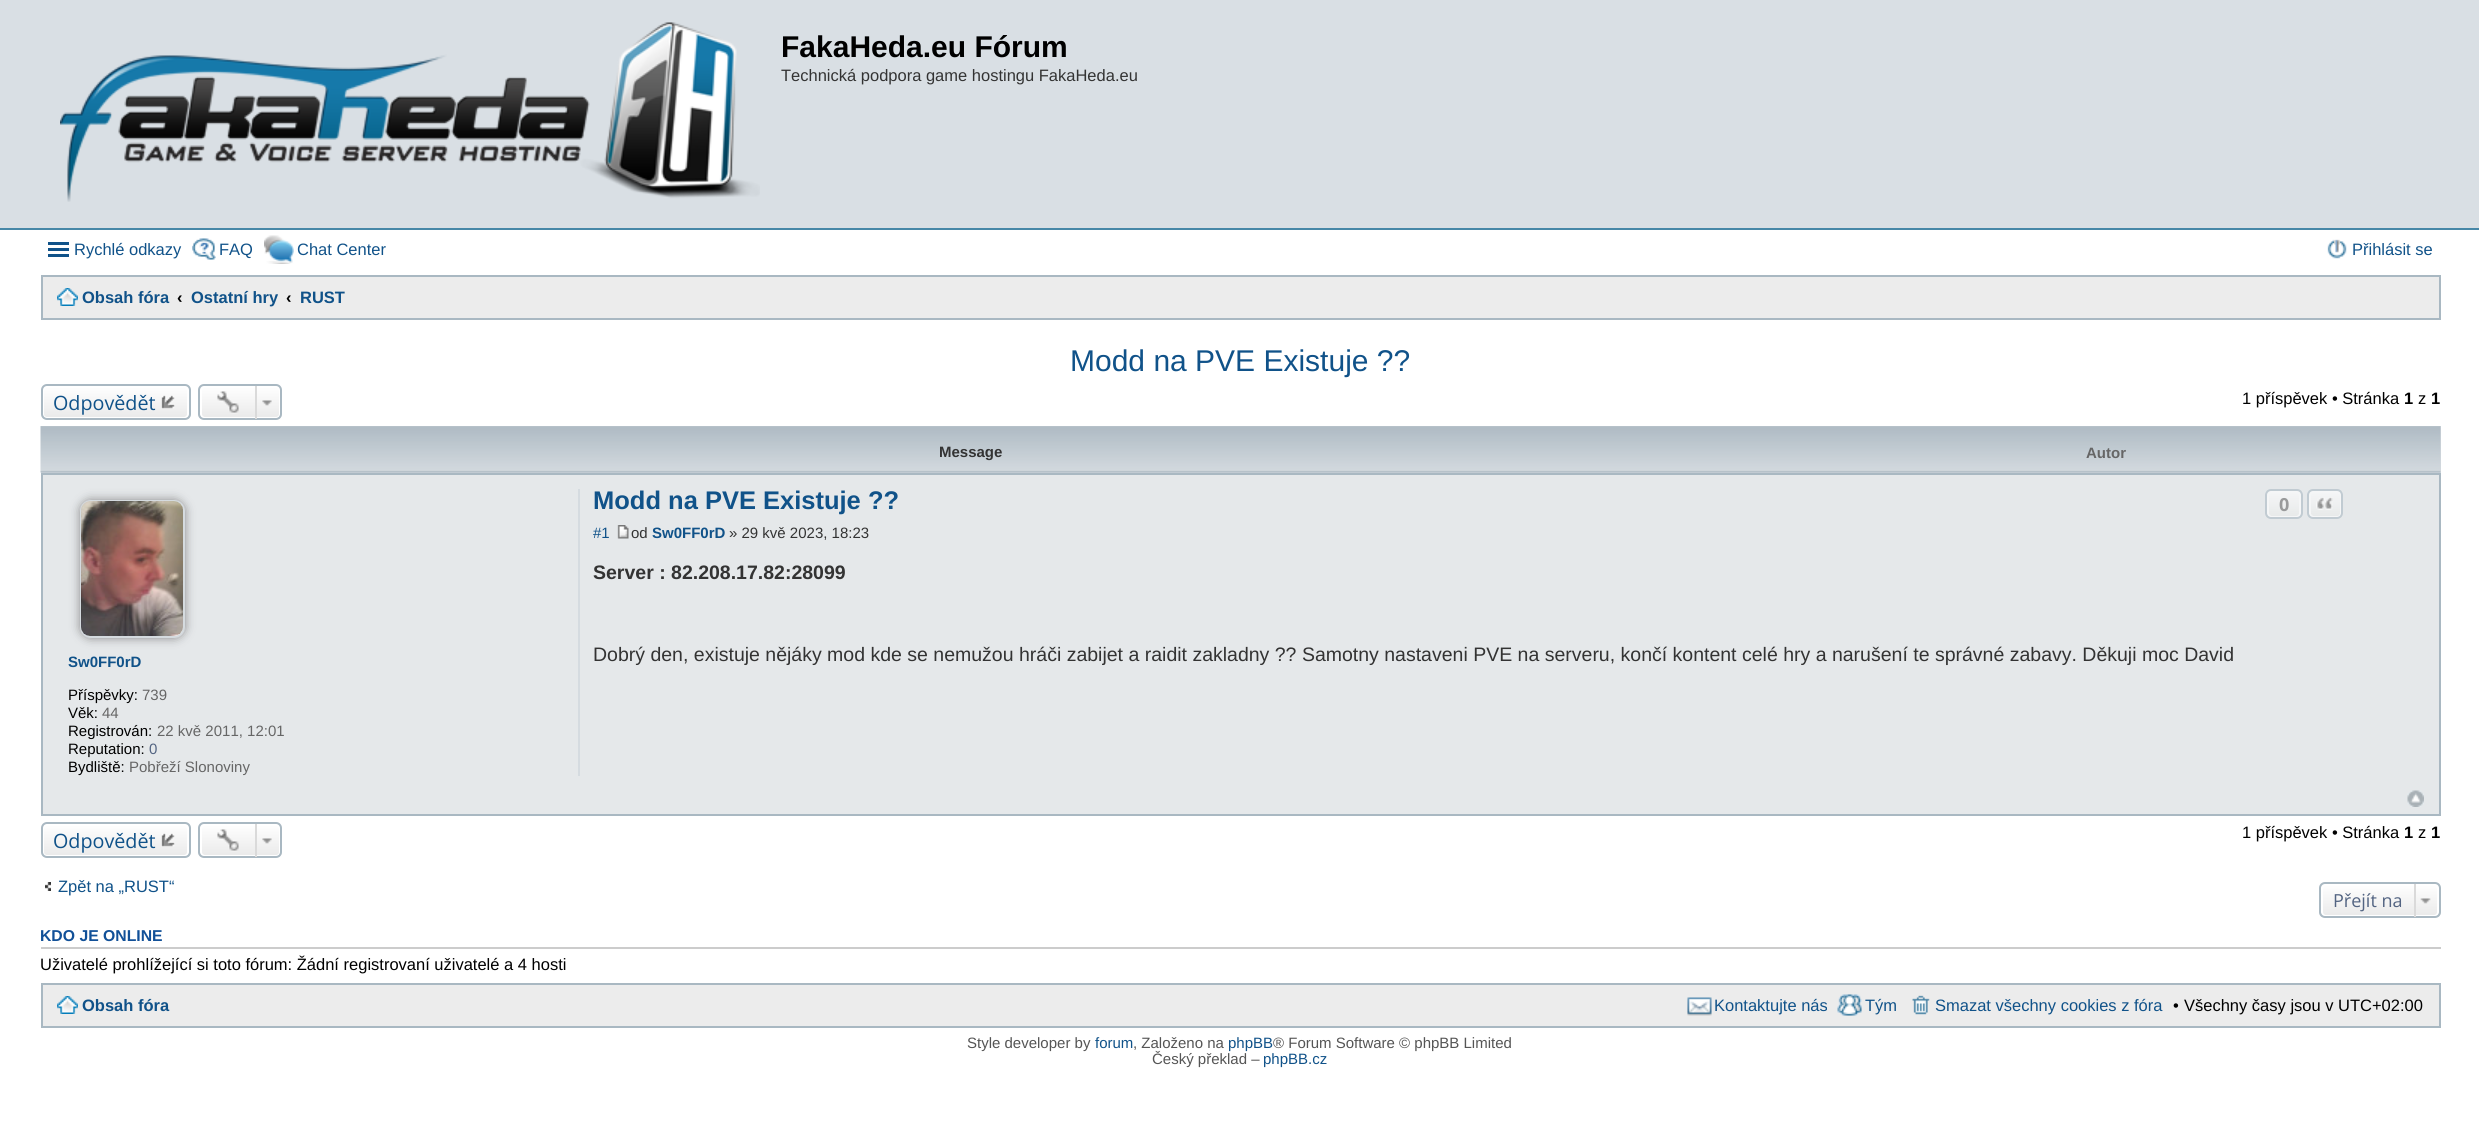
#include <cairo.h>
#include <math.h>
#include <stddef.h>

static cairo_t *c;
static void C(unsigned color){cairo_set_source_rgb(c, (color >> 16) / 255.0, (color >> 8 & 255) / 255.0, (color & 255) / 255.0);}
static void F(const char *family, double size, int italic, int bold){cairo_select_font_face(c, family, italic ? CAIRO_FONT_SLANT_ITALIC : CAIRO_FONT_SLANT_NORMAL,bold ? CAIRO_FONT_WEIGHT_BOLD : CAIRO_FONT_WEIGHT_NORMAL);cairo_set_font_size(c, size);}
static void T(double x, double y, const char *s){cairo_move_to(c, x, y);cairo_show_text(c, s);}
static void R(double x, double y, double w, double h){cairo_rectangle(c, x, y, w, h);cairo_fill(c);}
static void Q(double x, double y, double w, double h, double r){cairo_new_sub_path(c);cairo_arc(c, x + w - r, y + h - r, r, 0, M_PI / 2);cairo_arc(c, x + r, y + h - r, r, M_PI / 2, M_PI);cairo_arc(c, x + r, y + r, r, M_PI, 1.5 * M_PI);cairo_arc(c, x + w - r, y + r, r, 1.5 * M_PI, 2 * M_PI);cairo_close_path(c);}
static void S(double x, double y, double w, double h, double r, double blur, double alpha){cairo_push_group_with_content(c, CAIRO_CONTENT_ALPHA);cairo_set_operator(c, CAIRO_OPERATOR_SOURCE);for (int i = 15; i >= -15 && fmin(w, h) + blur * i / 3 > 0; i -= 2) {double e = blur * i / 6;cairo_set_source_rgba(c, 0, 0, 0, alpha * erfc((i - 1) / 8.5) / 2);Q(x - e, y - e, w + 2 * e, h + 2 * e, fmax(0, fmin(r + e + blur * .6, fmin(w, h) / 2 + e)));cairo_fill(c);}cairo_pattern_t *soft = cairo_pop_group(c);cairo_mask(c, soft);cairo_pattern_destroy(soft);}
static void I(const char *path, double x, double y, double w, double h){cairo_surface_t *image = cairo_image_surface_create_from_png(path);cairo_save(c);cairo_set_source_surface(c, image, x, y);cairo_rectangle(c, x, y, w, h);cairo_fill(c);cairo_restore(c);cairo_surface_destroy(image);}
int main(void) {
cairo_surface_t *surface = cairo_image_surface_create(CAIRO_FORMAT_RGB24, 2479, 1130);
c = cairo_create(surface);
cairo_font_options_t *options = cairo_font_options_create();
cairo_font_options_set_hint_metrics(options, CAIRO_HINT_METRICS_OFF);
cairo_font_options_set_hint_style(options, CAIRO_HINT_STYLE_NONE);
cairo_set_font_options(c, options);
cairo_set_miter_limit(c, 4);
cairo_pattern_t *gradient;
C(0xffffff);
cairo_paint(c);
C(0xd9dfe4);
R(0,0,2479,228);
C(0x4787a7);
R(0,228,2479,2);
I("1.png",60,22,700,180);
F("Liberation Sans",30,0,1);
C(0x000000);
T(781,57,"FakaHeda.eu Fórum");
F("Liberation Sans",16.5,0,0);
C(0x333333);
T(781,81,"Technická podpora game hostingu FakaHeda.eu");
C(0x105289);
R(48,242,21,3);
R(48,248,21,3);
R(48,254,21,3);
T(74,255,"Rychlé odkazy");
I("2.png",192,238,24,22);
T(219,255,"FAQ");
I("3.png",264,235,30,29);
T(297,255,"Chat Center");
I("4.png",2327,239,20,20);
T(2352,255,"Přihlásit se");
C(0xececec);
cairo_rectangle(c,42,276,2398,43);
cairo_fill_preserve(c);
C(0xa9b8c2);
cairo_stroke(c);
I("5.png",57,288,21,18);
F("Liberation Sans",16.5,0,1);
C(0x105289);
T(82,303,"Obsah fóra");
C(0x000000);
T(177,303,"‹");
C(0x105289);
T(191,303,"Ostatní hry");
C(0x000000);
T(286,303,"‹");
C(0x105289);
T(300,303,"RUST");
F("Liberation Sans",30,0,0);
T(1070,371,"Modd na PVE Existuje ?\077");
cairo_save(c);
Q(41,384,150,36,6);
cairo_clip(c);
gradient = cairo_pattern_create_linear(116,386,116,419);
cairo_pattern_add_color_stop_rgba(gradient,0,1,1,1,1);
cairo_pattern_add_color_stop_rgba(gradient,1,0.914,0.914,0.914,1);
cairo_set_source(c,gradient);
cairo_pattern_destroy(gradient);
R(41,386,150,33);
cairo_restore(c);
Q(43,387,145,31,4);
C(0xffffff);
cairo_stroke(c);
Q(42,385,148,34,5);
C(0xa9b8c2);
cairo_stroke(c);
F("Open Sans",19.75,0,0);
C(0x105289);
T(53,410,"Odpovědět");
I("6.png",161,395,14,14);
cairo_save(c);
Q(198,384,84,36,6);
cairo_clip(c);
gradient = cairo_pattern_create_linear(240,386,240,419);
cairo_pattern_add_color_stop_rgba(gradient,0,1,1,1,1);
cairo_pattern_add_color_stop_rgba(gradient,1,0.914,0.914,0.914,1);
cairo_set_source(c,gradient);
cairo_pattern_destroy(gradient);
R(198,386,84,33);
cairo_restore(c);
Q(201,387,79,31,4);
C(0xffffff);
cairo_stroke(c);
Q(199,385,82,34,5);
C(0xa9b8c2);
cairo_stroke(c);
I("7.png",217,391,22,23);
I("8.png",262,400,10,6);
C(0xdadada);
R(255,386,2,33);
F("Liberation Sans",16.5,0,0);
C(0x000000);
T(2242,404,"1 příspěvek • Stránka");
F("Liberation Sans",16.5,0,1);
T(2404,404,"1");
F("Liberation Sans",16.5,0,0);
T(2418,404,"z");
F("Liberation Sans",16.5,0,1);
T(2431,404,"1");
C(0xd3d9de);
R(41,426,2400,47);
I("9.png",40,426,2401,47);
F("Liberation Sans",15,0,1);
C(0x333333);
T(939,457,"Message");
C(0x666666);
T(2086,458,"Autor");
C(0xe5e8ea);
cairo_rectangle(c,42,474,2398,341);
cairo_fill_preserve(c);
C(0xa9b8c2);
cairo_stroke(c);
F("Liberation Sans",25.5,0,1);
C(0x105289);
T(593,509,"Modd na PVE Existuje ?\077");
cairo_save(c);
Q(2265,489,38,30,6);
cairo_clip(c);
gradient = cairo_pattern_create_linear(2284,491,2284,518);
cairo_pattern_add_color_stop_rgba(gradient,0,0.961,0.965,0.969,1);
cairo_pattern_add_color_stop_rgba(gradient,1,0.906,0.914,0.914,1);
cairo_set_source(c,gradient);
cairo_pattern_destroy(gradient);
R(2265,491,38,27);
cairo_restore(c);
Q(2268,492,32,25,4);
C(0xf5f6f7);
cairo_stroke(c);
Q(2266,490,36,28,5);
C(0xc1cbd2);
cairo_stroke(c);
F("Open Sans",18,0,1);
C(0x999a9b);
T(2279,511,"0");
cairo_save(c);
Q(2307,489,36,30,6);
cairo_clip(c);
gradient = cairo_pattern_create_linear(2325,491,2325,518);
cairo_pattern_add_color_stop_rgba(gradient,0,0.961,0.965,0.969,1);
cairo_pattern_add_color_stop_rgba(gradient,1,0.906,0.914,0.914,1);
cairo_set_source(c,gradient);
cairo_pattern_destroy(gradient);
R(2307,491,36,27);
cairo_restore(c);
Q(2310,492,31,25,4);
C(0xf5f6f7);
cairo_stroke(c);
Q(2308,490,34,28,5);
C(0xc1cbd2);
cairo_stroke(c);
I("10.png",2316,497,17,13);
F("Liberation Sans",15,0,0);
C(0x105289);
T(593,538,"#1");
I("11.png",617,525,12,14);
C(0x333333);
T(631,538,"od");
F("Liberation Sans",15,0,1);
C(0x105289);
T(652,538,"Sw0FF0rD");
F("Liberation Sans",15,0,0);
C(0x333333);
T(729,538,"» 29 kvě 2023, 18:23");
F("Liberation Sans",19.5,0,1);
T(593,579,"Server : 82.208.17.82:28099");
F("Liberation Sans",19.5,0,0);
T(593,661,"Dobrý den, existuje nějáky mod kde se nemužou hráči zabijet a raidit zakladny ?\077 Samotny nastaveni PVE na serveru, končí kontent celé hry a narušení te správné zabavy. Děkuji moc David");
C(0xd5dbe0);
R(578,489,2,287);
C(0x8a8a8b);
S(80,500,105,138,11,5,1);
C(0xfcfdfd);
Q(81,501,103,136,10);
cairo_fill_preserve(c);
C(0xd5dbdf);
cairo_stroke(c);
I("12.png",81,501,102,135);
F("Liberation Sans",15,0,1);
C(0x105289);
T(68,667,"Sw0FF0rD");
F("Liberation Sans",15,0,0);
C(0x000000);
T(68,700,"Příspěvky:");
C(0x666666);
T(142,700,"739");
C(0x000000);
T(68,718,"Věk:");
C(0x666666);
T(102,718,"44");
C(0x000000);
T(68,736,"Registrován:");
C(0x666666);
T(157,736,"22 kvě 2011, 12:01");
C(0x000000);
T(68,754,"Reputation:");
C(0x536482);
T(149,754,"0");
C(0x000000);
T(68,772,"Bydliště:");
C(0x666666);
T(129,772,"Pobřeží Slonoviny");
I("13.png",2407,790,17,17);
cairo_save(c);
Q(41,822,150,36,6);
cairo_clip(c);
gradient = cairo_pattern_create_linear(116,824,116,857);
cairo_pattern_add_color_stop_rgba(gradient,0,1,1,1,1);
cairo_pattern_add_color_stop_rgba(gradient,1,0.914,0.914,0.914,1);
cairo_set_source(c,gradient);
cairo_pattern_destroy(gradient);
R(41,824,150,33);
cairo_restore(c);
Q(43,825,145,31,4);
C(0xffffff);
cairo_stroke(c);
Q(42,823,148,34,5);
C(0xa9b8c2);
cairo_stroke(c);
F("Open Sans",19.75,0,0);
C(0x105289);
T(53,848,"Odpovědět");
I("6.png",161,833,14,14);
cairo_save(c);
Q(198,822,84,36,6);
cairo_clip(c);
gradient = cairo_pattern_create_linear(240,824,240,857);
cairo_pattern_add_color_stop_rgba(gradient,0,1,1,1,1);
cairo_pattern_add_color_stop_rgba(gradient,1,0.914,0.914,0.914,1);
cairo_set_source(c,gradient);
cairo_pattern_destroy(gradient);
R(198,824,84,33);
cairo_restore(c);
Q(201,825,79,31,4);
C(0xffffff);
cairo_stroke(c);
Q(199,823,82,34,5);
C(0xa9b8c2);
cairo_stroke(c);
I("7.png",217,829,22,23);
I("8.png",262,838,10,6);
C(0xdadada);
R(255,824,2,33);
F("Liberation Sans",16.5,0,0);
C(0x000000);
T(2242,838,"1 příspěvek • Stránka");
F("Liberation Sans",16.5,0,1);
T(2404,838,"1");
F("Liberation Sans",16.5,0,0);
T(2418,838,"z");
F("Liberation Sans",16.5,0,1);
T(2431,838,"1");
I("14.png",45,882,6,9);
F("Liberation Sans",16.5,0,0);
C(0x105289);
T(58,892,"Zpět na „RUST“");
cairo_save(c);
Q(2319,882,122,36,6);
cairo_clip(c);
gradient = cairo_pattern_create_linear(2380,884,2380,917);
cairo_pattern_add_color_stop_rgba(gradient,0,1,1,1,1);
cairo_pattern_add_color_stop_rgba(gradient,1,0.914,0.914,0.914,1);
cairo_set_source(c,gradient);
cairo_pattern_destroy(gradient);
R(2319,884,122,33);
cairo_restore(c);
Q(2322,885,116,31,4);
C(0xffffff);
cairo_stroke(c);
Q(2320,883,120,34,5);
C(0xa9b8c2);
cairo_stroke(c);
F("Open Sans",18,0,0);
C(0x536482);
T(2333,907,"Přejít na");
I("15.png",2420,898,11,6);
C(0xdadada);
R(2414,884,2,33);
C(0xcccccc);
R(41,947,2400,2);
F("Liberation Sans",15.75,0,1);
C(0x115098);
T(40,941,"KDO JE ONLINE");
F("Liberation Sans",16.5,0,0);
C(0x000000);
T(40,970,"Uživatelé prohlížející si toto fórum: Žádní registrovaní uživatelé a 4 hosti");
C(0xececec);
cairo_rectangle(c,42,984,2398,43);
cairo_fill_preserve(c);
C(0xa9b8c2);
cairo_stroke(c);
I("5.png",57,996,21,18);
F("Liberation Sans",16.5,0,1);
C(0x105289);
T(82,1011,"Obsah fóra");
I("16.png",1687,997,25,19);
F("Liberation Sans",16.5,0,0);
T(1714,1011,"Kontaktujte nás");
I("17.png",1837,994,25,22);
T(1865,1011,"Tým");
I("18.png",1912,995,18,20);
T(1935,1011,"Smazat všechny cookies z fóra");
C(0x000000);
T(2173,1011,"•");
T(2184,1011,"Všechny časy jsou v UTC+02:00");
F("Liberation Sans",15,0,0);
C(0x555555);
T(967,1048,"Style developer by");
C(0x105289);
T(1095,1048,"forum");
C(0x555555);
T(1133,1048,", Založeno na");
C(0x105289);
T(1228,1048,"phpBB");
C(0x555555);
T(1273,1048,"® Forum Software © phpBB Limited");
T(1152,1064,"Český překlad –");
C(0x105289);
T(1263,1064,"phpBB.cz");
cairo_surface_write_to_png(surface, "o.png");
cairo_font_options_destroy(options);
cairo_destroy(c);
cairo_surface_destroy(surface);
return 0;
}
